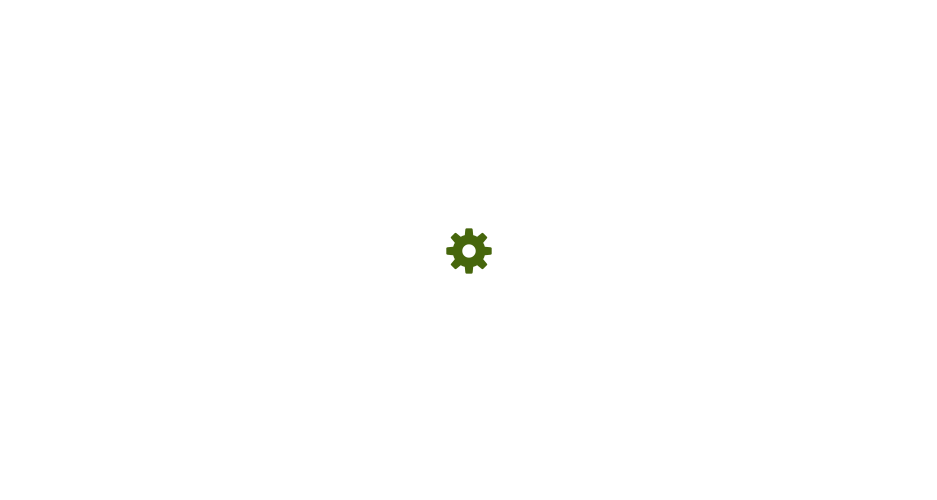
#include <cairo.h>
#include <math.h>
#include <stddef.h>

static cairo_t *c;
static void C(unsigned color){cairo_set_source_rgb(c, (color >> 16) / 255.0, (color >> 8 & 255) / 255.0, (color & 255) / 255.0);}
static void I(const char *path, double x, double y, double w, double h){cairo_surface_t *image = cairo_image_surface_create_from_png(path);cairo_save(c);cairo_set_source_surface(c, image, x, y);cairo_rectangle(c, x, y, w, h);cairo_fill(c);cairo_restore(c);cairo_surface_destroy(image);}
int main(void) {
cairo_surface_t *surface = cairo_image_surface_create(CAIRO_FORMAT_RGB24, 937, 500);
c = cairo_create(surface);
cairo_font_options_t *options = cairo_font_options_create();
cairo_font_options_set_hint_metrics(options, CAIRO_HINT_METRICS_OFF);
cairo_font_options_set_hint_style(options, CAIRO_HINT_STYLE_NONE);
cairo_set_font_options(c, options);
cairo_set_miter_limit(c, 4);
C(0xffffff);
cairo_paint(c);
I("1.png",446,228,46,46);
cairo_surface_write_to_png(surface, "o.png");
cairo_font_options_destroy(options);
cairo_destroy(c);
cairo_surface_destroy(surface);
return 0;
}
